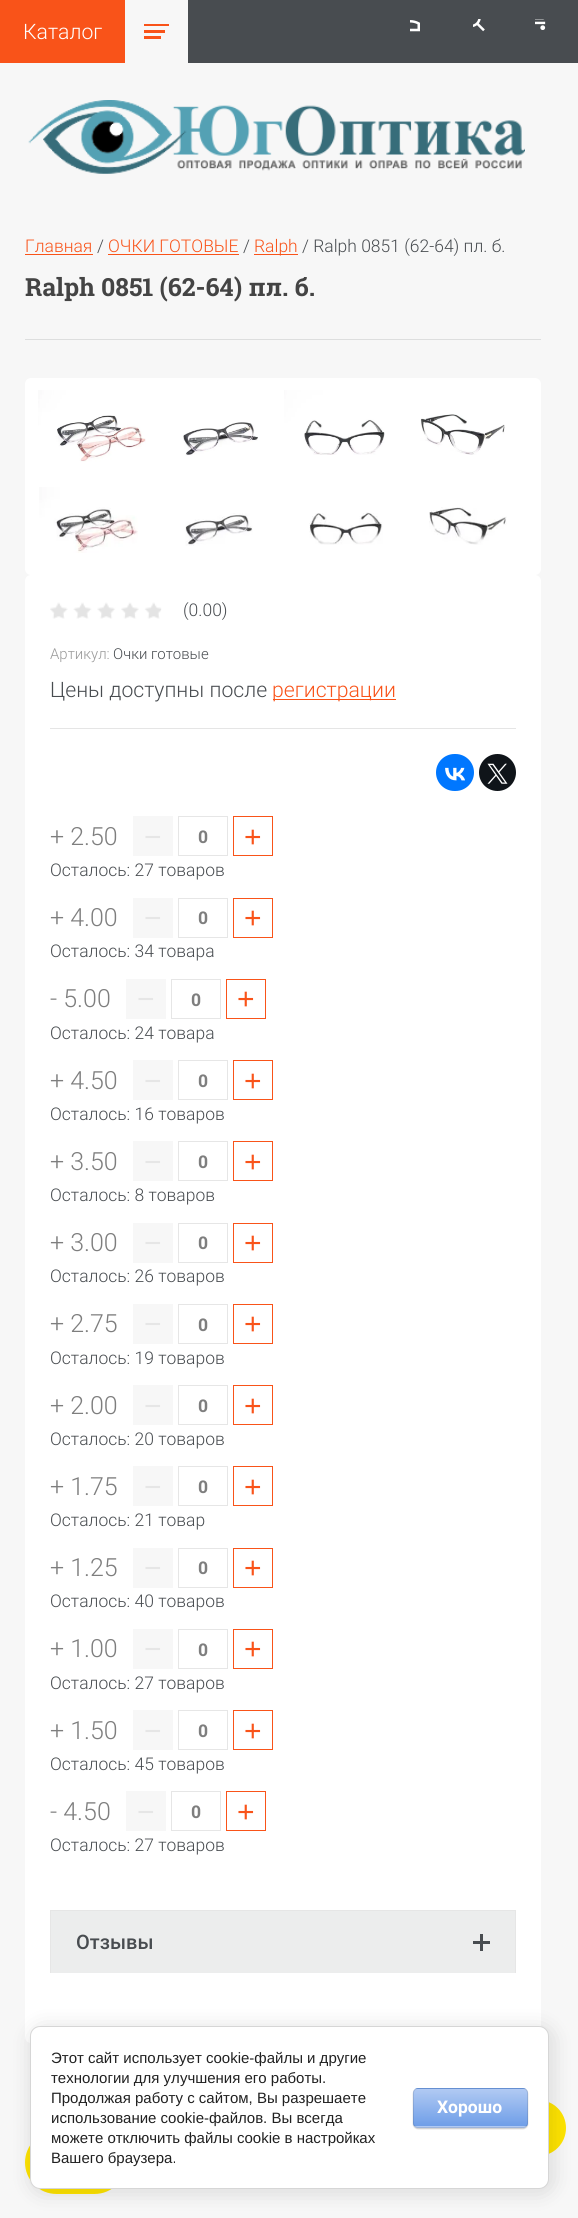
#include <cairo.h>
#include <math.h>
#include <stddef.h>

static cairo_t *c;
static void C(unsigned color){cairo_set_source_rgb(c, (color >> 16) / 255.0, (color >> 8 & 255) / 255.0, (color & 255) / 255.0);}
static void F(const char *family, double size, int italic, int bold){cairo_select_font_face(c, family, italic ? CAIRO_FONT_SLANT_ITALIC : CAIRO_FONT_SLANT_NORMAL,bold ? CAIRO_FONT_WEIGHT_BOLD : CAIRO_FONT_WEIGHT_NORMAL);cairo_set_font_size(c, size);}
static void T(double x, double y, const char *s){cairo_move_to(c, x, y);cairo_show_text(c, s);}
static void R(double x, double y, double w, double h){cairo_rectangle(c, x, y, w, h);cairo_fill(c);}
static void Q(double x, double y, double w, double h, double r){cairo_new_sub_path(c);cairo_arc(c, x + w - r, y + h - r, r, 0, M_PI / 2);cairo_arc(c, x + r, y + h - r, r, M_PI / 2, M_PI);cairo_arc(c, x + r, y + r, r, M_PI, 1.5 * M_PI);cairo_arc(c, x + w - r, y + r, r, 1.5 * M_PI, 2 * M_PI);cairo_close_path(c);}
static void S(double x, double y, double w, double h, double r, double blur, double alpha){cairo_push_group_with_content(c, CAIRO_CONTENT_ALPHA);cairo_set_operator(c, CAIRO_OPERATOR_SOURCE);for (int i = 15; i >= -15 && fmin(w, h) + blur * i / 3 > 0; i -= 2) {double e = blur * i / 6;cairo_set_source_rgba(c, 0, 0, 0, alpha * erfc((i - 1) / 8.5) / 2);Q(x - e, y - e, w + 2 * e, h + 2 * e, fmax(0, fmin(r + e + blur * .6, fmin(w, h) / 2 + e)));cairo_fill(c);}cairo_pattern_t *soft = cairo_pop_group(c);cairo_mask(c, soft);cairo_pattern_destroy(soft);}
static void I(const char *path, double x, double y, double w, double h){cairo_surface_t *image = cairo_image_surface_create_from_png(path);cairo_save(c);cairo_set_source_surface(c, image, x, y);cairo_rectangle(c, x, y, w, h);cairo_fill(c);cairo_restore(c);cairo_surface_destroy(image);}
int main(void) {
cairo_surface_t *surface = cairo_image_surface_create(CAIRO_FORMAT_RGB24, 578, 2218);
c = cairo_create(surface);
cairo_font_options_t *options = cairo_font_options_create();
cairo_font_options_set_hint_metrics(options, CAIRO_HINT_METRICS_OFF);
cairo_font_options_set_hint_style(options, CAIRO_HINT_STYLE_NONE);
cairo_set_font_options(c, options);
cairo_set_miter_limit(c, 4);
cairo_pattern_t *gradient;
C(0xf7f7f7);
cairo_paint(c);
C(0x484c50);
R(188,0,390,63);
C(0xf95319);
R(0,0,125,63);
F("Roboto Light",21.25,0,0);
C(0xffffff);
T(23,39,"Каталог");
C(0xf95319);
R(144,24,25,2);
R(144,30,21,3);
R(144,36,17,3);
I("1.png",410,20,10,12);
I("2.png",473,19,12,13);
I("3.png",535,19,11,11);
I("4.png",28,100,497,74);
F("Roboto Light",17.5,0,0);
T(25,252,"Главная");
R(25,254,68,1);
C(0x484c50);
T(97,252,"/");
C(0xf95319);
T(108,252,"ОЧКИ ГОТОВЫЕ");
R(108,254,131,1);
C(0x484c50);
T(243,252,"/");
C(0xf95319);
R(254,254,44,1);
T(254,252,"Ralph");
C(0x484c50);
T(302,252,"/ Ralph 0851 (62-64) пл. б.");
C(0xdddede);
R(25,339,516,1);
F("Roboto Slab",25,0,1);
C(0x444444);
T(25,296,"Ralph 0851 (62-64) пл. б.");
C(0xffffff);
Q(25,378,516,197,6);
cairo_fill(c);
I("5.png",38,390,108,72);
I("6.png",183,422,75,34);
I("7.png",284,390,101,65);
I("8.png",420,414,85,41);
I("9.png",39,487,99,66);
I("10.png",185,513,68,33);
I("11.png",309,512,74,33);
I("12.png",429,507,78,38);
Q(25,575,516,1468,6);
cairo_fill(c);
I("13.png",50,602,112,17);
F("Roboto Light",17.5,0,0);
C(0x484c50);
T(183,616,"(0.00)");
F("Roboto Light",15,0,0);
C(0x999999);
T(50,659,"Артикул:");
C(0x484c50);
T(113,659,"Очки готовые");
F("Roboto Light",21.25,0,0);
T(50,697,"Цены доступны после");
C(0xf95319);
R(273,699,123,1);
T(272,697,"регистрации");
C(0xe5e5e5);
R(50,728,466,1);
C(0x0077ff);
Q(436,754,38,37,18.5);
cairo_fill(c);
I("14.png",445,767,20,14);
C(0x0f1419);
cairo_arc(c,497.5,772.5,18.5,0,2 * M_PI);
cairo_fill(c);
I("15.png",487,763,21,21);
F("Roboto Light",25,0,0);
C(0x7e7e7e);
T(50,845,"+ 2.50");
C(0xf7f7f7);
R(133,816,40,40);
F("Liberation Sans",30,0,0);
C(0xe6e6e6);
T(144,847,"−");
cairo_rectangle(c,178.5,816.5,49,39);
cairo_set_line_width(c,1);
cairo_stroke(c);
F("Roboto Slab",17.5,0,1);
C(0x7e7e7e);
T(198,843,"0");
cairo_rectangle(c,233.5,816.5,39,39);
C(0xf95319);
cairo_stroke(c);
F("Liberation Sans",30,0,0);
T(244,847,"+");
F("Roboto Light",17.5,0,0);
C(0x484c50);
T(50,876,"Осталось: 27 товаров");
F("Roboto Light",25,0,0);
C(0x7e7e7e);
T(50,926,"+ 4.00");
C(0xf7f7f7);
R(133,898,40,40);
F("Liberation Sans",30,0,0);
C(0xe6e6e6);
T(144,928,"−");
cairo_rectangle(c,178.5,898.5,49,39);
cairo_stroke(c);
F("Roboto Slab",17.5,0,1);
C(0x7e7e7e);
T(198,924,"0");
cairo_rectangle(c,233.5,898.5,39,39);
C(0xf95319);
cairo_stroke(c);
F("Liberation Sans",30,0,0);
T(244,928,"+");
F("Roboto Light",17.5,0,0);
C(0x484c50);
T(50,957,"Осталось: 34 товара");
F("Roboto Light",25,0,0);
C(0x7e7e7e);
T(50,1007,"- 5.00");
C(0xf7f7f7);
R(126,979,40,40);
F("Liberation Sans",30,0,0);
C(0xe6e6e6);
T(137,1009,"−");
cairo_rectangle(c,171.5,979.5,49,39);
cairo_stroke(c);
F("Roboto Slab",17.5,0,1);
C(0x7e7e7e);
T(191,1006,"0");
cairo_rectangle(c,226.5,979.5,39,39);
C(0xf95319);
cairo_stroke(c);
F("Liberation Sans",30,0,0);
T(237,1009,"+");
F("Roboto Light",17.5,0,0);
C(0x484c50);
T(50,1039,"Осталось: 24 товара");
F("Roboto Light",25,0,0);
C(0x7e7e7e);
T(50,1089,"+ 4.50");
C(0xf7f7f7);
R(133,1060,40,40);
F("Liberation Sans",30,0,0);
C(0xe6e6e6);
T(144,1091,"−");
cairo_rectangle(c,178.5,1060.5,49,39);
cairo_stroke(c);
F("Roboto Slab",17.5,0,1);
C(0x7e7e7e);
T(198,1087,"0");
cairo_rectangle(c,233.5,1060.5,39,39);
C(0xf95319);
cairo_stroke(c);
F("Liberation Sans",30,0,0);
T(244,1091,"+");
F("Roboto Light",17.5,0,0);
C(0x484c50);
T(50,1120,"Осталось: 16 товаров");
F("Roboto Light",25,0,0);
C(0x7e7e7e);
T(50,1170,"+ 3.50");
C(0xf7f7f7);
R(133,1141,40,40);
F("Liberation Sans",30,0,0);
C(0xe6e6e6);
T(144,1172,"−");
cairo_rectangle(c,178.5,1141.5,49,39);
cairo_stroke(c);
F("Roboto Slab",17.5,0,1);
C(0x7e7e7e);
T(198,1168,"0");
cairo_rectangle(c,233.5,1141.5,39,39);
C(0xf95319);
cairo_stroke(c);
F("Liberation Sans",30,0,0);
T(244,1172,"+");
F("Roboto Light",17.5,0,0);
C(0x484c50);
T(50,1201,"Осталось: 8 товаров");
F("Roboto Light",25,0,0);
C(0x7e7e7e);
T(50,1251,"+ 3.00");
C(0xf7f7f7);
R(133,1223,40,40);
F("Liberation Sans",30,0,0);
C(0xe6e6e6);
T(144,1253,"−");
cairo_rectangle(c,178.5,1223.5,49,39);
cairo_stroke(c);
F("Roboto Slab",17.5,0,1);
C(0x7e7e7e);
T(198,1249,"0");
cairo_rectangle(c,233.5,1223.5,39,39);
C(0xf95319);
cairo_stroke(c);
F("Liberation Sans",30,0,0);
T(244,1253,"+");
F("Roboto Light",17.5,0,0);
C(0x484c50);
T(50,1282,"Осталось: 26 товаров");
F("Roboto Light",25,0,0);
C(0x7e7e7e);
T(50,1332,"+ 2.75");
C(0xf7f7f7);
R(133,1304,40,40);
F("Liberation Sans",30,0,0);
C(0xe6e6e6);
T(144,1334,"−");
cairo_rectangle(c,178.5,1304.5,49,39);
cairo_stroke(c);
F("Roboto Slab",17.5,0,1);
C(0x7e7e7e);
T(198,1331,"0");
cairo_rectangle(c,233.5,1304.5,39,39);
C(0xf95319);
cairo_stroke(c);
F("Liberation Sans",30,0,0);
T(244,1334,"+");
F("Roboto Light",17.5,0,0);
C(0x484c50);
T(50,1364,"Осталось: 19 товаров");
F("Roboto Light",25,0,0);
C(0x7e7e7e);
T(50,1414,"+ 2.00");
C(0xf7f7f7);
R(133,1385,40,40);
F("Liberation Sans",30,0,0);
C(0xe6e6e6);
T(144,1416,"−");
cairo_rectangle(c,178.5,1385.5,49,39);
cairo_stroke(c);
F("Roboto Slab",17.5,0,1);
C(0x7e7e7e);
T(198,1412,"0");
cairo_rectangle(c,233.5,1385.5,39,39);
C(0xf95319);
cairo_stroke(c);
F("Liberation Sans",30,0,0);
T(244,1416,"+");
F("Roboto Light",17.5,0,0);
C(0x484c50);
T(50,1445,"Осталось: 20 товаров");
F("Roboto Light",25,0,0);
C(0x7e7e7e);
T(50,1495,"+ 1.75");
C(0xf7f7f7);
R(133,1466,40,40);
F("Liberation Sans",30,0,0);
C(0xe6e6e6);
T(144,1497,"−");
cairo_rectangle(c,178.5,1466.5,49,39);
cairo_stroke(c);
F("Roboto Slab",17.5,0,1);
C(0x7e7e7e);
T(198,1493,"0");
cairo_rectangle(c,233.5,1466.5,39,39);
C(0xf95319);
cairo_stroke(c);
F("Liberation Sans",30,0,0);
T(244,1497,"+");
F("Roboto Light",17.5,0,0);
C(0x484c50);
T(50,1526,"Осталось: 21 товар");
F("Roboto Light",25,0,0);
C(0x7e7e7e);
T(50,1576,"+ 1.25");
C(0xf7f7f7);
R(133,1548,40,40);
F("Liberation Sans",30,0,0);
C(0xe6e6e6);
T(144,1578,"−");
cairo_rectangle(c,178.5,1548.5,49,39);
cairo_stroke(c);
F("Roboto Slab",17.5,0,1);
C(0x7e7e7e);
T(198,1574,"0");
cairo_rectangle(c,233.5,1548.5,39,39);
C(0xf95319);
cairo_stroke(c);
F("Liberation Sans",30,0,0);
T(244,1578,"+");
F("Roboto Light",17.5,0,0);
C(0x484c50);
T(50,1607,"Осталось: 40 товаров");
F("Roboto Light",25,0,0);
C(0x7e7e7e);
T(50,1657,"+ 1.00");
C(0xf7f7f7);
R(133,1629,40,40);
F("Liberation Sans",30,0,0);
C(0xe6e6e6);
T(144,1659,"−");
cairo_rectangle(c,178.5,1629.5,49,39);
cairo_stroke(c);
F("Roboto Slab",17.5,0,1);
C(0x7e7e7e);
T(198,1656,"0");
cairo_rectangle(c,233.5,1629.5,39,39);
C(0xf95319);
cairo_stroke(c);
F("Liberation Sans",30,0,0);
T(244,1659,"+");
F("Roboto Light",17.5,0,0);
C(0x484c50);
T(50,1689,"Осталось: 27 товаров");
F("Roboto Light",25,0,0);
C(0x7e7e7e);
T(50,1739,"+ 1.50");
C(0xf7f7f7);
R(133,1710,40,40);
F("Liberation Sans",30,0,0);
C(0xe6e6e6);
T(144,1741,"−");
cairo_rectangle(c,178.5,1710.5,49,39);
cairo_stroke(c);
F("Roboto Slab",17.5,0,1);
C(0x7e7e7e);
T(198,1737,"0");
cairo_rectangle(c,233.5,1710.5,39,39);
C(0xf95319);
cairo_stroke(c);
F("Liberation Sans",30,0,0);
T(244,1741,"+");
F("Roboto Light",17.5,0,0);
C(0x484c50);
T(50,1770,"Осталось: 45 товаров");
F("Roboto Light",25,0,0);
C(0x7e7e7e);
T(50,1820,"- 4.50");
C(0xf7f7f7);
R(126,1791,40,40);
F("Liberation Sans",30,0,0);
C(0xe6e6e6);
T(137,1822,"−");
cairo_rectangle(c,171.5,1791.5,49,39);
cairo_stroke(c);
F("Roboto Slab",17.5,0,1);
C(0x7e7e7e);
T(191,1818,"0");
cairo_rectangle(c,226.5,1791.5,39,39);
C(0xf95319);
cairo_stroke(c);
F("Liberation Sans",30,0,0);
T(237,1822,"+");
F("Roboto Light",17.5,0,0);
C(0x484c50);
T(50,1851,"Осталось: 27 товаров");
C(0xeceded);
R(51,1911,464,62);
C(0xe6e6e6);
R(50,1910,466,1);
R(515,1910,1,63);
R(50,1910,1,63);
F("Roboto Medium",20,0,0);
C(0x484c50);
T(76,1949,"Отзывы");
R(480,1934,3,17);
R(473,1941,17,3);
C(0xffe401);
Q(25,2131,101,63,31.5);
cairo_fill(c);
cairo_arc(c,538,2128,28,0,2 * M_PI);
cairo_fill(c);
C(0x000000);
S(33,2029,518,162,10,11,.14);
C(0xffffff);
Q(30.5,2026.5,518,162,9.5);
cairo_fill_preserve(c);
C(0xd6d6d6);
cairo_stroke(c);
F("Liberation Sans",15,0,0);
C(0x212121);
T(51,2063,"Этот сайт использует cookie-файлы и другие");
T(51,2083,"технологии для улучшения его работы.");
T(51,2103,"Продолжая работу с сайтом, Вы разрешаете");
T(51,2123,"использование cookie-файлов. Вы всегда");
T(51,2143,"можете отключить файлы cookie в настройках");
T(51,2163,"Вашего браузера.");
C(0x000000);
S(413,2089,115,40,5,.5,.2);
cairo_save(c);
Q(413,2088,115,40,5);
cairo_clip(c);
gradient = cairo_pattern_create_linear(470,2051,470,2089);
cairo_pattern_add_color_stop_rgba(gradient,0,0.694,0.792,0.953,1);
cairo_pattern_add_color_stop_rgba(gradient,1,0.435,0.62,0.91,1);
cairo_set_source(c,gradient);
cairo_pattern_destroy(gradient);
R(413,2088,115,1);
gradient = cairo_pattern_create_linear(470,2089,470,2126);
cairo_pattern_add_color_stop_rgba(gradient,0,0.694,0.792,0.953,1);
cairo_pattern_add_color_stop_rgba(gradient,1,0.435,0.62,0.91,1);
cairo_set_source(c,gradient);
cairo_pattern_destroy(gradient);
R(413,2089,115,37);
gradient = cairo_pattern_create_linear(470,2126,470,2164);
cairo_pattern_add_color_stop_rgba(gradient,0,0.694,0.792,0.953,1);
cairo_pattern_add_color_stop_rgba(gradient,1,0.435,0.62,0.91,1);
cairo_set_source(c,gradient);
cairo_pattern_destroy(gradient);
R(413,2126,115,2);
cairo_restore(c);
Q(413.5,2088.5,114,39,4.5);
cairo_set_source_rgba(c,0,0,0,0.1);
cairo_stroke(c);
F("Roboto",17.5,0,1);
C(0xffffff);
T(437,2113,"Хорошо");
cairo_surface_write_to_png(surface, "o.png");
cairo_font_options_destroy(options);
cairo_destroy(c);
cairo_surface_destroy(surface);
return 0;
}
